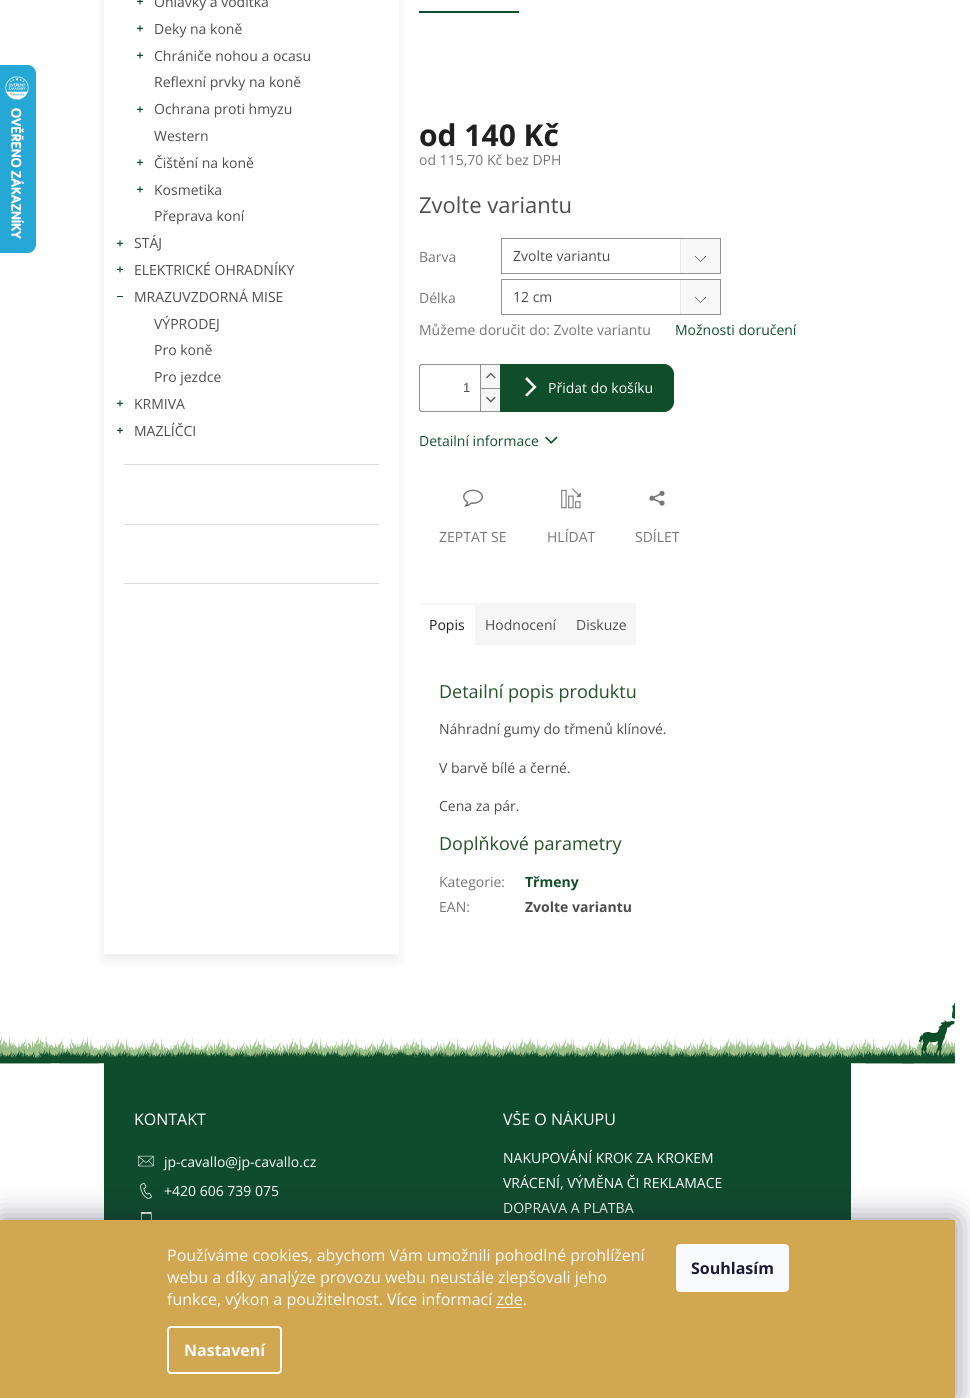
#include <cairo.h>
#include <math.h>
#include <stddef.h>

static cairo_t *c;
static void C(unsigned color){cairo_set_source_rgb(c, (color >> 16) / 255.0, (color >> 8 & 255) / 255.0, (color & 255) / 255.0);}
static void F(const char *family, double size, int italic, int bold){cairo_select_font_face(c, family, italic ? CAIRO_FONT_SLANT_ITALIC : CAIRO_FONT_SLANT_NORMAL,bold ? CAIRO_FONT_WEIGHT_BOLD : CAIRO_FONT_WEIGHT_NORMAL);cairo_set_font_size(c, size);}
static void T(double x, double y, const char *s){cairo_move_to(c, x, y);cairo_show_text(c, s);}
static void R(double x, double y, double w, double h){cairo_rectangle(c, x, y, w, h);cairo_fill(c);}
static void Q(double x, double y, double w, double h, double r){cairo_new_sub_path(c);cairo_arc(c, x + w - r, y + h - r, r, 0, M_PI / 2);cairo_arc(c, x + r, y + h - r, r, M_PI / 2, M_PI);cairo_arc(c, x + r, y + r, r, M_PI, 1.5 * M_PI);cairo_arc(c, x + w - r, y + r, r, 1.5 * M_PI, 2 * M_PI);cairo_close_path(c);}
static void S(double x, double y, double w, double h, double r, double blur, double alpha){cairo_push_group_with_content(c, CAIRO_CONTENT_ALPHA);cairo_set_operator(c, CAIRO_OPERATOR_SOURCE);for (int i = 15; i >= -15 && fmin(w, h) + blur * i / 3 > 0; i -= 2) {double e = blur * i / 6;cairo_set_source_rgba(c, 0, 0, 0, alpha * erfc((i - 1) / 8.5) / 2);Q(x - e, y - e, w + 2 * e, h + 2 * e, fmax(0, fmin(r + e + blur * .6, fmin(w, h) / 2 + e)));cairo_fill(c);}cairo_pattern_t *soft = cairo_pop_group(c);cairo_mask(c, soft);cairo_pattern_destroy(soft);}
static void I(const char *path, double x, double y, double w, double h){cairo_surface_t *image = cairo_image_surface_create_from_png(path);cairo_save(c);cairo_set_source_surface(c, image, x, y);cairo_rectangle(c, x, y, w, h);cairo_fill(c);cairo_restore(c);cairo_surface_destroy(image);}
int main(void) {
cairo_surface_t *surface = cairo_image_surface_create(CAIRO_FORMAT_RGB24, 970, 1398);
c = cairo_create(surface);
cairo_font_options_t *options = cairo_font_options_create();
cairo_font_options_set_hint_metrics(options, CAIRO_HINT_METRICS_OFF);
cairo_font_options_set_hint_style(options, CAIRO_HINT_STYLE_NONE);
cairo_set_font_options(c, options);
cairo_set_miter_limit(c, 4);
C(0xffffff);
cairo_paint(c);
I("1.png",0,65,36,188);
cairo_save(c);
cairo_set_fill_rule(c,CAIRO_FILL_RULE_EVEN_ODD);
cairo_new_path(c);
cairo_move_to(c,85,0);
cairo_line_to(c,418,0);
cairo_line_to(c,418,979);
cairo_line_to(c,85,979);
cairo_close_path(c);
cairo_move_to(c,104,-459);
cairo_line_to(c,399,-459);
cairo_line_to(c,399,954);
cairo_line_to(c,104,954);
cairo_close_path(c);
cairo_clip(c);
C(0x000000);
S(104,-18,295,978,0,6,.08);
cairo_restore(c);
C(0xdadada);
R(124,464,255,1);
I("2.png",137,0,6,5);
F("Open Sans",14,0,0);
C(0x4d4d4d);
T(154,7,"Ohlávky a vodítka");
I("3.png",137,25,6,7);
T(154,34,"Deky na koně");
I("3.png",137,52,6,7);
T(154,61,"Chrániče nohou a ocasu");
T(154,87,"Reflexní prvky na koně");
I("3.png",137,106,6,7);
T(154,114,"Ochrana proti hmyzu");
T(154,141,"Western");
I("3.png",137,159,6,7);
T(154,168,"Čištění na koně");
I("3.png",137,186,6,7);
T(154,195,"Kosmetika");
T(154,221,"Přeprava koní");
I("3.png",117,240,6,7);
T(134,248,"STÁJ");
I("3.png",117,266,6,7);
T(134,275,"ELEKTRICKÉ OHRADNÍKY");
C(0x0f4d2b);
R(117,296,6,1);
C(0x4d4d4d);
T(134,302,"MRAZUVZDORNÁ MISE");
T(154,329,"VÝPRODEJ");
T(154,355,"Pro koně");
T(154,382,"Pro jezdce");
I("3.png",117,400,6,7);
T(134,409,"KRMIVA");
I("3.png",117,427,6,7);
T(134,436,"MAZLÍČCI");
C(0xdadada);
R(124,524,255,1);
R(124,583,255,1);
C(0x0f4d2b);
R(419,11,100,2);
F("Open Sans",30,0,1);
C(0x1f1f1f);
T(419,146,"od 140 Kč");
F("Open Sans",14,0,0);
C(0x767676);
T(419,165,"od 115,70 Kč bez DPH");
F("Open Sans",22,0,0);
C(0x4d4d4d);
T(419,213,"Zvolte variantu");
F("Open Sans",14,0,0);
C(0x767676);
T(419,262,"Barva");
I("4.png",680,239,40,34);
cairo_rectangle(c,501.5,238.5,219,35);
C(0x919191);
cairo_set_line_width(c,1);
cairo_stroke(c);
C(0x4d4d4d);
T(513,261,"Zvolte variantu");
C(0x767676);
T(419,303,"Délka");
I("4.png",680,280,40,34);
cairo_rectangle(c,501.5,279.5,219,35);
C(0x919191);
cairo_stroke(c);
C(0x4d4d4d);
T(513,302,"12 cm");
C(0x767676);
T(419,335,"Můžeme doručit do: Zvolte variantu");
C(0x0f4d2b);
T(675,335,"Možnosti doručení");
C(0x919191);
cairo_set_fill_rule(c,CAIRO_FILL_RULE_EVEN_ODD);
cairo_new_path(c);
cairo_move_to(c,422,364);
cairo_line_to(c,500,364);
cairo_line_to(c,500,412);
cairo_line_to(c,422,412);
cairo_curve_to(c,420,412,419,411,419,409);
cairo_line_to(c,419,367);
cairo_curve_to(c,419,365,420,364,422,364);
cairo_close_path(c);
cairo_move_to(c,422,365);
cairo_line_to(c,500,365);
cairo_line_to(c,500,411);
cairo_line_to(c,422,411);
cairo_curve_to(c,421,411,420,410,420,409);
cairo_line_to(c,420,367);
cairo_curve_to(c,420,366,421,365,422,365);
cairo_close_path(c);
cairo_fill(c);
F("Liberation Sans",13,0,0);
C(0x4d4d4d);
T(463,392,"1");
C(0xf6f6f6);
R(481,365,19,23);
C(0x919191);
R(480,365,1,23);
I("5.png",486,372,10,7);
C(0xf6f6f6);
R(481,389,19,22);
C(0x919191);
R(480,388,20,1);
R(480,388,1,23);
I("6.png",486,396,10,7);
C(0x0f4d2b);
cairo_new_path(c);
cairo_move_to(c,500.5,364.5);
cairo_line_to(c,664,364.5);
cairo_curve_to(c,669,364.5,673.5,369,673.5,374);
cairo_line_to(c,673.5,402);
cairo_curve_to(c,673.5,407,669,411.5,664,411.5);
cairo_line_to(c,500.5,411.5);
cairo_close_path(c);
cairo_fill_preserve(c);
cairo_stroke(c);
C(0xffffff);
cairo_set_fill_rule(c,CAIRO_FILL_RULE_WINDING);
cairo_new_path(c);
cairo_move_to(c,527,396.5);
cairo_line_to(c,525,395);
cairo_line_to(c,533,387);
cairo_line_to(c,525,379);
cairo_line_to(c,527,377);
cairo_line_to(c,536.5,387);
cairo_close_path(c);
cairo_fill(c);
F("Open Sans",14,0,0);
T(548,393,"Přidat do košíku");
C(0x0f4d2b);
T(419,446,"Detailní informace");
I("7.png",545,436,13,8);
I("8.png",463,489,20,18);
C(0x767676);
T(439,542,"ZEPTAT SE");
I("9.png",561,488,20,21);
T(547,542,"HLÍDAT");
I("10.png",649,490,16,16);
T(635,542,"SDÍLET");
C(0xf6f6f6);
R(419,603,56,2);
C(0x1f1f1f);
T(429,630,"Popis");
C(0xf6f6f6);
R(475,603,161,42);
C(0x4d4d4d);
T(485,630,"Hodnocení");
T(576,630,"Diskuze");
F("Open Sans",18,0,0);
C(0x25522b);
T(439,698,"Detailní popis produktu");
F("Open Sans",14,0,0);
C(0x4d4d4d);
T(439,734,"Náhradní gumy do třmenů klínové.");
T(439,773,"V barvě bílé a černé.");
T(439,811,"Cena za pár.");
F("Open Sans",18,0,0);
C(0x25522b);
T(439,850,"Doplňkové parametry");
F("Open Sans",14,0,0);
C(0x767676);
T(439,887,"Kategorie:");
F("Open Sans",14,0,1);
C(0x0f4d2b);
T(525,887,"Třmeny");
F("Open Sans",14,0,0);
C(0x767676);
T(439,912,"EAN:");
F("Open Sans",14,0,1);
C(0x4d4d4d);
T(525,912,"Zvolte variantu");
I("11.png",0,1002,955,62);
C(0x0f4b2d);
R(104,1063,747,157);
F("Open Sans",16,0,0);
C(0xffffff);
T(134,1125,"KONTAKT");
I("12.png",138,1155,16,12);
F("Open Sans",14,0,0);
T(164,1167,"jp-cavallo@jp-cavallo.cz");
I("13.png",140,1183,12,16);
T(164,1196,"+420 606 739 075");
I("14.png",141,1212,11,8);
cairo_save(c);
cairo_rectangle(c,503,1111,328,254);
cairo_clip(c);
F("Open Sans",16,0,0);
T(503,1125,"VŠE O NÁKUPU");
cairo_restore(c);
T(503,1163,"NAKUPOVÁNÍ KROK ZA KROKEM");
T(503,1188,"VRÁCENÍ, VÝMĚNA ČI REKLAMACE");
T(503,1213,"DOPRAVA A PLATBA");
C(0x1b1939);
S(0,1220,955,178,0,15,.5);
C(0xd1a752);
R(0,1220,955,178);
F("Open Sans",16,0,0);
C(0xf8fafb);
T(167,1261,"Používáme cookies, abychom Vám umožnili pohodlné prohlížení");
T(167,1283,"webu a díky analýze provozu webu neustále zlepšovali jeho");
T(167,1305,"funkce, výkon a použitelnost. Více informací zde.");
R(496,1307,26,1);
Q(168,1327,113,46,3);
cairo_set_line_width(c,2);
cairo_stroke(c);
F("Open Sans",16,0,1);
T(184,1356,"Nastavení");
Q(676,1244,113,48,4);
cairo_fill(c);
C(0x1a1937);
T(691,1274,"Souhlasím");
cairo_surface_write_to_png(surface, "o.png");
cairo_font_options_destroy(options);
cairo_destroy(c);
cairo_surface_destroy(surface);
return 0;
}
